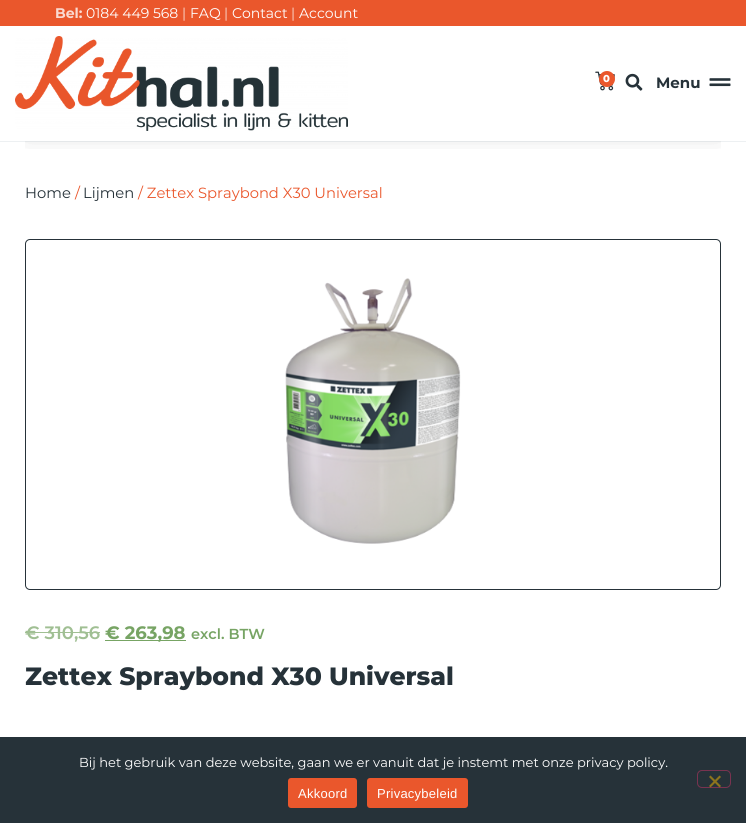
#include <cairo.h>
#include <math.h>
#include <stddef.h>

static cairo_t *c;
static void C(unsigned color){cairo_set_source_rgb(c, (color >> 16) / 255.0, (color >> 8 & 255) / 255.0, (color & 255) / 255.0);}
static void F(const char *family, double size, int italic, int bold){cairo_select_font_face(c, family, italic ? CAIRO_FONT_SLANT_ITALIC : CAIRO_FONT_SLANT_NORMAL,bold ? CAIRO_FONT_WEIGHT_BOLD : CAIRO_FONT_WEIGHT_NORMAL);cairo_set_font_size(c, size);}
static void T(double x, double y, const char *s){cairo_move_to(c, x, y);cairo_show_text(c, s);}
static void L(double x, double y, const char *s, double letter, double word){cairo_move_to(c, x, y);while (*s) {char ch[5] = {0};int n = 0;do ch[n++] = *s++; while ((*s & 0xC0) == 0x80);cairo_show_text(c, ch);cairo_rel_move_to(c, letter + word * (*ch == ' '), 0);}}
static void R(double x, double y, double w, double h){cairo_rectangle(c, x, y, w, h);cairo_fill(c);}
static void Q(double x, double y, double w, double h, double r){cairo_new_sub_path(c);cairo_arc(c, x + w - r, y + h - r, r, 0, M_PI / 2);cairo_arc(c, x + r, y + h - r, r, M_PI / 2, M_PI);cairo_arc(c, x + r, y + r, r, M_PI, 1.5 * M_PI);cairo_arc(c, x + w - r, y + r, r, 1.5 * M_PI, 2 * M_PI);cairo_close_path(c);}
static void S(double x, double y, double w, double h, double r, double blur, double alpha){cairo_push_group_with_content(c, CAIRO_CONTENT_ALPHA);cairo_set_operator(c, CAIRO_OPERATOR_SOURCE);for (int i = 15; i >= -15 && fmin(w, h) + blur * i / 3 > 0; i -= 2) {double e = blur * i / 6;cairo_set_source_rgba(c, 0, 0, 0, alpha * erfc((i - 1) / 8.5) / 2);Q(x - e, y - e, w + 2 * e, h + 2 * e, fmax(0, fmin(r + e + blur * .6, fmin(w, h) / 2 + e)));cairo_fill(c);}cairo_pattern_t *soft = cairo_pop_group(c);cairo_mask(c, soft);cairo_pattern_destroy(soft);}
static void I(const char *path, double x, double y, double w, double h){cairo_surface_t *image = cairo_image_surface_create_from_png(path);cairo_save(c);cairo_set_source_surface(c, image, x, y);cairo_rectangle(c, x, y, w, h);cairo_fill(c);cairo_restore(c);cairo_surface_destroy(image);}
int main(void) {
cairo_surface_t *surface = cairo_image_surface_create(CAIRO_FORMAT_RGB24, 746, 823);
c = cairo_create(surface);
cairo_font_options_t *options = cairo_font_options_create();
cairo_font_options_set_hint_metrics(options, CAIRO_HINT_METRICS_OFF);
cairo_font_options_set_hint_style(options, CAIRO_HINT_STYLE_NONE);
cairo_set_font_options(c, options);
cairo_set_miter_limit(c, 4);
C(0xffffff);
cairo_paint(c);
C(0xea572c);
R(0,0,746,26);
F("Montserrat",14,0,1);
C(0xfadad1);
T(55,18,"Bel:");
F("Montserrat",14,0,0);
C(0xffffff);
T(86,18,"0184 449 568");
C(0xfadad1);
T(182,18,"|");
C(0xffffff);
T(190,18,"FAQ");
C(0xfadad1);
T(224,18,"|");
C(0xffffff);
T(232,18,"Contact");
C(0xfadad1);
T(291,18,"|");
C(0xffffff);
T(299,18,"Account");
C(0xedf0f2);
R(0,141,746,1);
cairo_save(c);
cairo_rectangle(c,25,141,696,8);
cairo_clip(c);
C(0x000000);
S(26,70,694,63,0,14,.16);
cairo_restore(c);
I("1.png",15,36,333,95);
I("2.png",595,71,20,20);
C(0xea572c);
cairo_arc(c,607,79,8,0,2 * M_PI);
cairo_fill(c);
F("Montserrat ExtraBold",10,0,0);
C(0xffffff);
T(603,82,"0");
I("3.png",625,73,18,18);
F("Montserrat",15,0,1);
C(0x263239);
T(656,88,"Menu");
I("4.png",709,78,22,9);
F("Montserrat",14.75,0,0);
T(25,198,"Home");
C(0xea572c);
T(75,198,"/");
C(0x263239);
T(83,198,"Lijmen");
C(0xea572c);
T(138,198,"/ Zettex Spraybond X30 Universal");
Q(25.5,239.5,695,350,4.5);
C(0x263239);
cairo_set_line_width(c,1);
cairo_stroke(c);
I("5.png",285,278,176,266);
F("Montserrat SemiBold",18,0,0);
C(0xa0bf93);
T(25,639,"€ 310,56");
R(25,632,75,1);
C(0x77a464);
R(105,640,81,1);
F("Montserrat",18,0,1);
T(105,639,"€ 263,98");
F("Montserrat SemiBold",14.5,0,0);
T(191,639,"excl. BTW");
F("Montserrat ExtraBold",25,0,0);
C(0x263239);
T(25,685,"Zettex Spraybond X30 Universal");
R(0,737,746,86);
F("Montserrat",13,0,0);
C(0xffffff);
T(79,767,"Bij het gebruik van deze website, gaan we er vanuit dat je instemt met onze privacy policy.");
Q(697.5,770.5,33,17,4.5);
C(0x793350);
cairo_stroke(c);
C(0x8d741d);
cairo_new_path(c);
cairo_move_to(c,719.5,775.5);
cairo_line_to(c,721,777);
cairo_line_to(c,710.5,787.5);
cairo_line_to(c,709,786);
cairo_close_path(c);
cairo_fill(c);
cairo_new_path(c);
cairo_move_to(c,709,777);
cairo_line_to(c,710.5,775.5);
cairo_line_to(c,721,786);
cairo_line_to(c,719.5,787.5);
cairo_close_path(c);
cairo_fill(c);
C(0xea572c);
Q(288,778,69,30,3);
cairo_fill(c);
F("Liberation Sans",13,0,0);
C(0xffffff);
L(298,798,"Akkoord",.25,0);
C(0xea572c);
Q(367,778,101,30,3);
cairo_fill(c);
C(0xffffff);
L(377,798,"Privacybeleid",.25,0);
cairo_surface_write_to_png(surface, "o.png");
cairo_font_options_destroy(options);
cairo_destroy(c);
cairo_surface_destroy(surface);
return 0;
}
